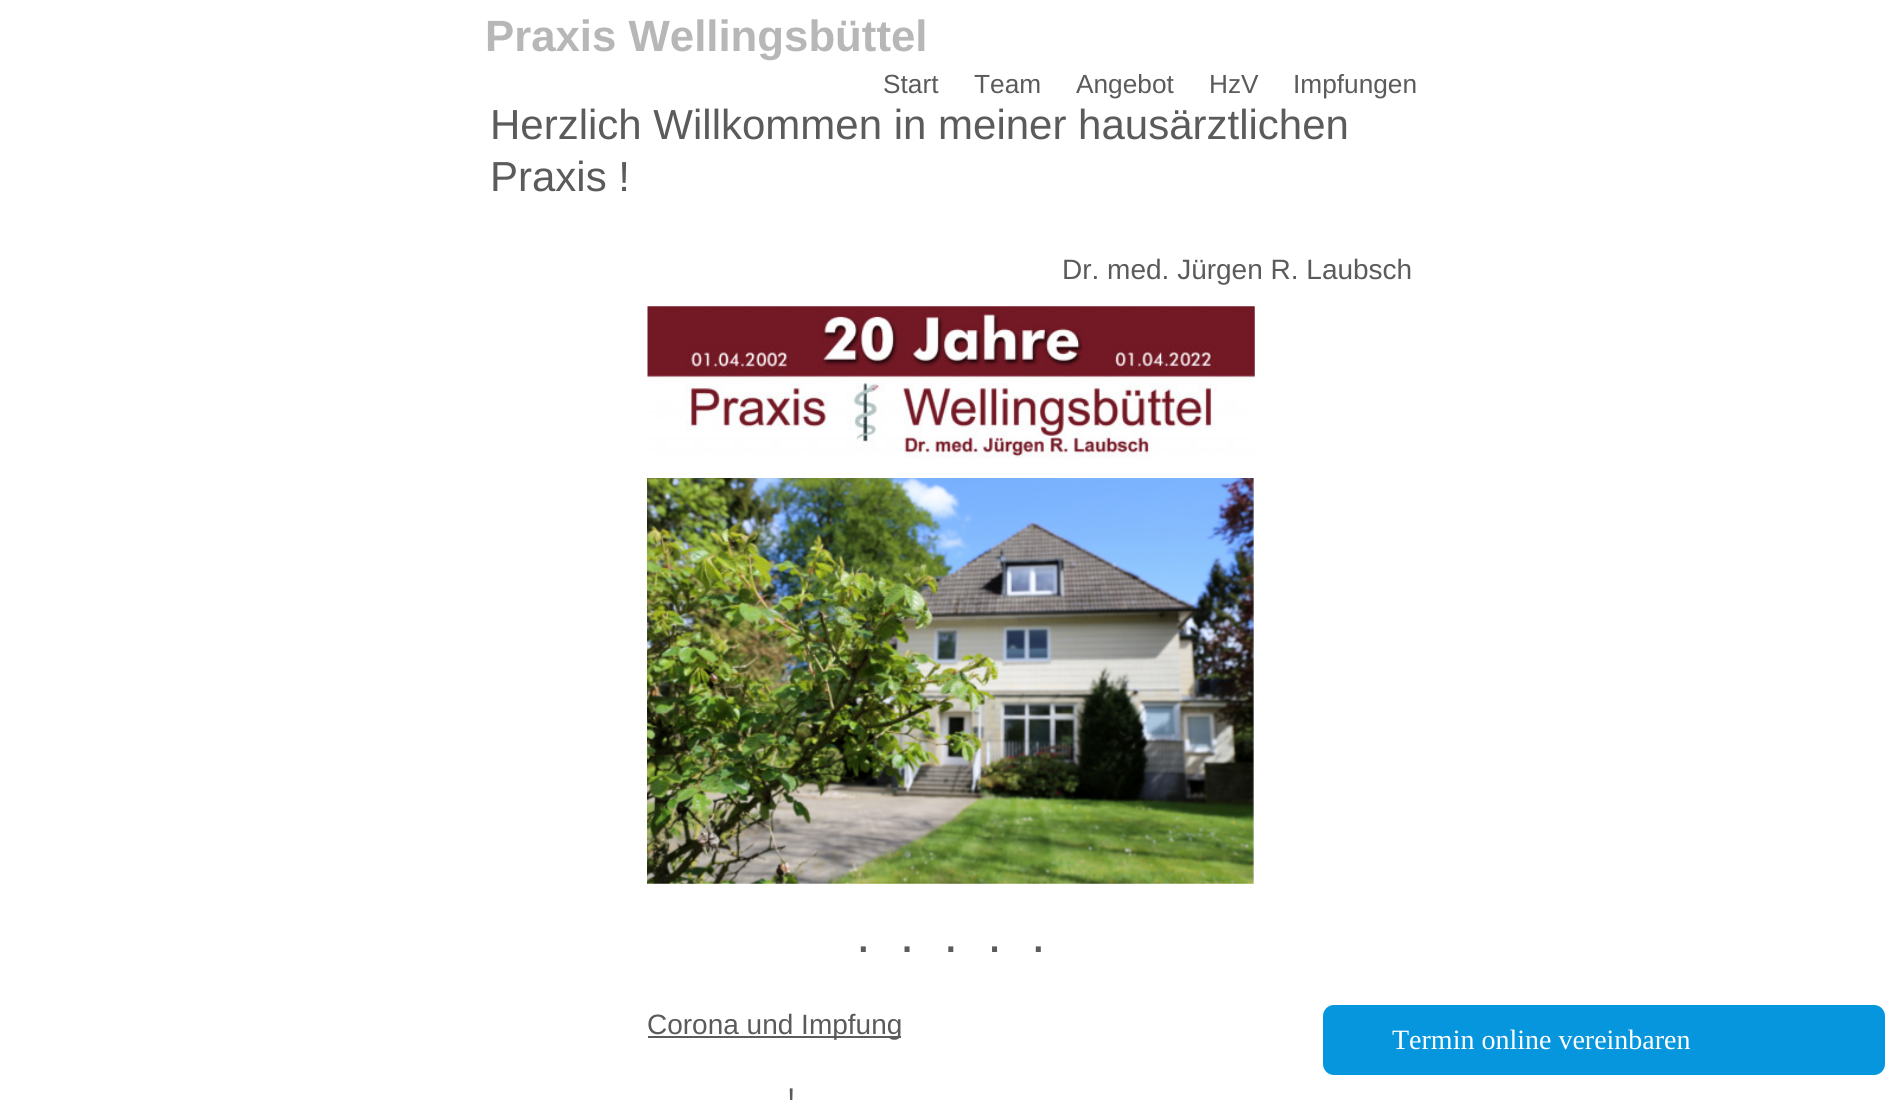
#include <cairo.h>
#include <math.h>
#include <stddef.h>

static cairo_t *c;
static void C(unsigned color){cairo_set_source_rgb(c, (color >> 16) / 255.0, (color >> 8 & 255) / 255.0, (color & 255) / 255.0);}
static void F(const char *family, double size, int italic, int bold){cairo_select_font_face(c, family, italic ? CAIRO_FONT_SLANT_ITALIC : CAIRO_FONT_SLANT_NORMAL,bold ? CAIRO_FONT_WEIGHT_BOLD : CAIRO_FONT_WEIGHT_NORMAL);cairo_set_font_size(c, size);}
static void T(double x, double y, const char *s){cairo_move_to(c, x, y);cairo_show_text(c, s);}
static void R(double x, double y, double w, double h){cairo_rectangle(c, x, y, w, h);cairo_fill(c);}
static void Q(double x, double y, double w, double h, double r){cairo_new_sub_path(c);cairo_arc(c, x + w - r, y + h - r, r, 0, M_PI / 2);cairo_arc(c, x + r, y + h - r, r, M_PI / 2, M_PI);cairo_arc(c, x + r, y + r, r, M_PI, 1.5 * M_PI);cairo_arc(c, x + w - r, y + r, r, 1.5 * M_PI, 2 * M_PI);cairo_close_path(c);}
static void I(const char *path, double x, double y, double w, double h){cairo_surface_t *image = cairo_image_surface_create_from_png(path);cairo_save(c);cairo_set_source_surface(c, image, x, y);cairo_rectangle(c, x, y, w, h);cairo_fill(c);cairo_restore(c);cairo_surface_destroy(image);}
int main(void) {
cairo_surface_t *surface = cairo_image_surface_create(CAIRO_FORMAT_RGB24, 1901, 1100);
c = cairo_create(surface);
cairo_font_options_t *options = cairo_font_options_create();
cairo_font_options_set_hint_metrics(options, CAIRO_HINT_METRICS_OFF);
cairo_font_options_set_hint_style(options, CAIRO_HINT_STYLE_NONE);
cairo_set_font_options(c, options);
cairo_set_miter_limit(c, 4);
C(0xffffff);
cairo_paint(c);
F("Liberation Sans",43.75,0,1);
C(0xb7b7b7);
T(485,51,"Praxis Wellingsbüttel");
F("Liberation Sans",26.25,0,0);
C(0x5b5b5b);
T(883,93,"Start");
T(974,93,"Team");
T(1076,93,"Angebot");
T(1209,93,"HzV");
T(1293,93,"Impfungen");
F("Liberation Sans",42,0,0);
T(490,139,"Herzlich Willkommen in meiner hausärztlichen");
T(490,191,"Praxis !");
F("Liberation Sans",28,0,0);
T(1062,279,"Dr. med. Jürgen R. Laubsch");
I("1.png",647,306,608,153);
I("2.png",647,478,607,406);
F("Liberation Sans",52.5,0,0);
T(856,952,".  .  .  .  .");
R(648,1036,253,2);
F("Liberation Sans",28,0,0);
T(647,1034,"Corona und Impfung");
F("Liberation Sans",30,0,0);
T(787,1109,"!");
C(0x0596de);
Q(1323,1005,562,70,11);
cairo_fill(c);
F("Liberation Serif",28,0,0);
C(0xffffff);
T(1392,1049,"Termin online vereinbaren");
cairo_surface_write_to_png(surface, "o.png");
cairo_font_options_destroy(options);
cairo_destroy(c);
cairo_surface_destroy(surface);
return 0;
}
